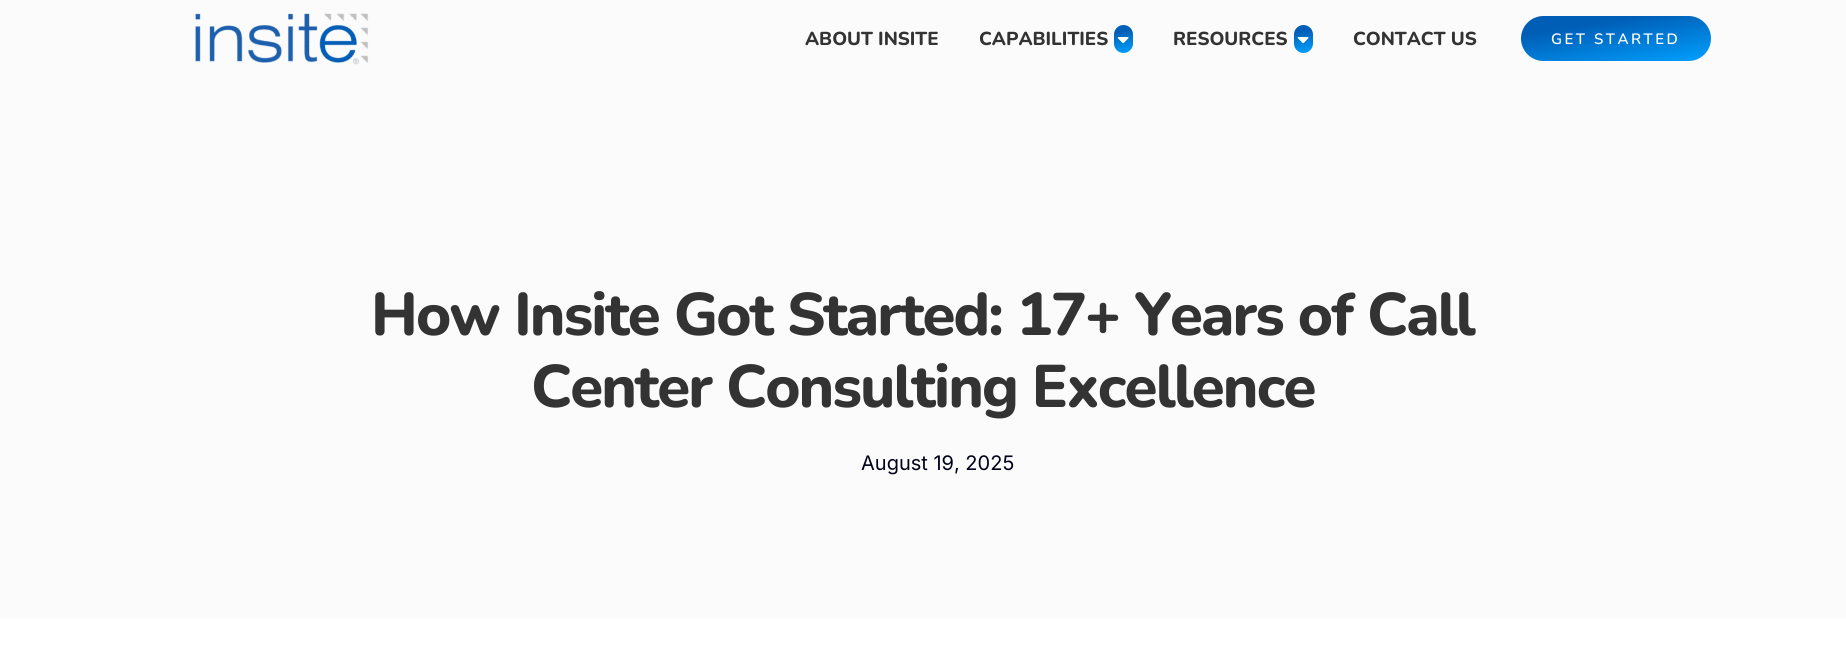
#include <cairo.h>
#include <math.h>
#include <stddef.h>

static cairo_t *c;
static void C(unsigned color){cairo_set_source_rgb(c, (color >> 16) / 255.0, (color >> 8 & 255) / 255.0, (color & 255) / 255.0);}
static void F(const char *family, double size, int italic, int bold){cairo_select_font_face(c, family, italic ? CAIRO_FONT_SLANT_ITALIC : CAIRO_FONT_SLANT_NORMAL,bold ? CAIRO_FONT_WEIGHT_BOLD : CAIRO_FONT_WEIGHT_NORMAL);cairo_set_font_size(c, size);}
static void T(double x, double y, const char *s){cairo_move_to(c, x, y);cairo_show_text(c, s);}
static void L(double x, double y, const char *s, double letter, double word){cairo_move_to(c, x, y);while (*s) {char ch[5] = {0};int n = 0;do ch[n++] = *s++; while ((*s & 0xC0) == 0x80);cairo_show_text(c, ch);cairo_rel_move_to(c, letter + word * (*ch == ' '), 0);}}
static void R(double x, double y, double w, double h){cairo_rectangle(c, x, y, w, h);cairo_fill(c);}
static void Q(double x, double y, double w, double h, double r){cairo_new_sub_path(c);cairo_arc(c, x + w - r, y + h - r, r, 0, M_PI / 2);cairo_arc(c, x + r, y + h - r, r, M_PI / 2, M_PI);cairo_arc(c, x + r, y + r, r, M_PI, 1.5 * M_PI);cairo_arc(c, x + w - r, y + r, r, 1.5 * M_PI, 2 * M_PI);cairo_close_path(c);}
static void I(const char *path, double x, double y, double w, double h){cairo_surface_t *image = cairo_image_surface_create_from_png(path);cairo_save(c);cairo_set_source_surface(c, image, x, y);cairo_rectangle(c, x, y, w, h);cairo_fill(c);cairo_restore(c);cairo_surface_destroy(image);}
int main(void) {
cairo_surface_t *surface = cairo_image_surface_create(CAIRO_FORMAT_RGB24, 1846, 670);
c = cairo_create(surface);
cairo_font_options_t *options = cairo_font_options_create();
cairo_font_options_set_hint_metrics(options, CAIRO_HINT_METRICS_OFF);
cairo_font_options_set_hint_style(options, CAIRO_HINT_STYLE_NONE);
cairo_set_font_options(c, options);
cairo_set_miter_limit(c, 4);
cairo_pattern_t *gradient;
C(0xffffff);
cairo_paint(c);
C(0xfbfbfc);
R(0,0,1846,618);
I("1.png",195,13,174,52);
F("Nunito ExtraBold",18.75,0,0);
C(0x333333);
T(805,45,"ABOUT INSITE");
T(979,45,"CAPABILITIES");
gradient = cairo_pattern_create_linear(1126,54,1120,24);
cairo_pattern_add_color_stop_rgba(gradient,0,0,0.631,1,1);
cairo_pattern_add_color_stop_rgba(gradient,.75,0,0.369,0.714,1);
cairo_set_source(c,gradient);
cairo_pattern_destroy(gradient);
Q(1114,25,19,28,9.5);
cairo_fill(c);
I("2.png",1117,37,12,7);
C(0x333333);
T(1173,45,"RESOURCES");
gradient = cairo_pattern_create_linear(1306,54,1300,24);
cairo_pattern_add_color_stop_rgba(gradient,0,0,0.631,1,1);
cairo_pattern_add_color_stop_rgba(gradient,.75,0,0.369,0.714,1);
cairo_set_source(c,gradient);
cairo_pattern_destroy(gradient);
Q(1294,25,19,28,9.5);
cairo_fill(c);
I("2.png",1297,37,12,7);
C(0x333333);
T(1353,45,"CONTACT US");
gradient = cairo_pattern_create_linear(1623,77,1610,.7);
cairo_pattern_add_color_stop_rgba(gradient,0,0,0.631,1,1);
cairo_pattern_add_color_stop_rgba(gradient,.75,0,0.369,0.714,1);
cairo_set_source(c,gradient);
cairo_pattern_destroy(gradient);
Q(1521,16,190,45,22.5);
cairo_fill(c);
F("Nunito SemiBold",15,0,0);
C(0xffffff);
L(1551,44,"GET STARTED",2.5,0);
F("Nunito ExtraBold",60,0,0);
C(0x333333);
L(371,335,"How Insite Got Started: 17+ Years of Call",-1.9,0);
L(531,407,"Center Consulting Excellence",-1.9,0);
F("Inter",20,0,0);
C(0x010219);
T(861,470,"August 19, 2025");
cairo_surface_write_to_png(surface, "o.png");
cairo_font_options_destroy(options);
cairo_destroy(c);
cairo_surface_destroy(surface);
return 0;
}
